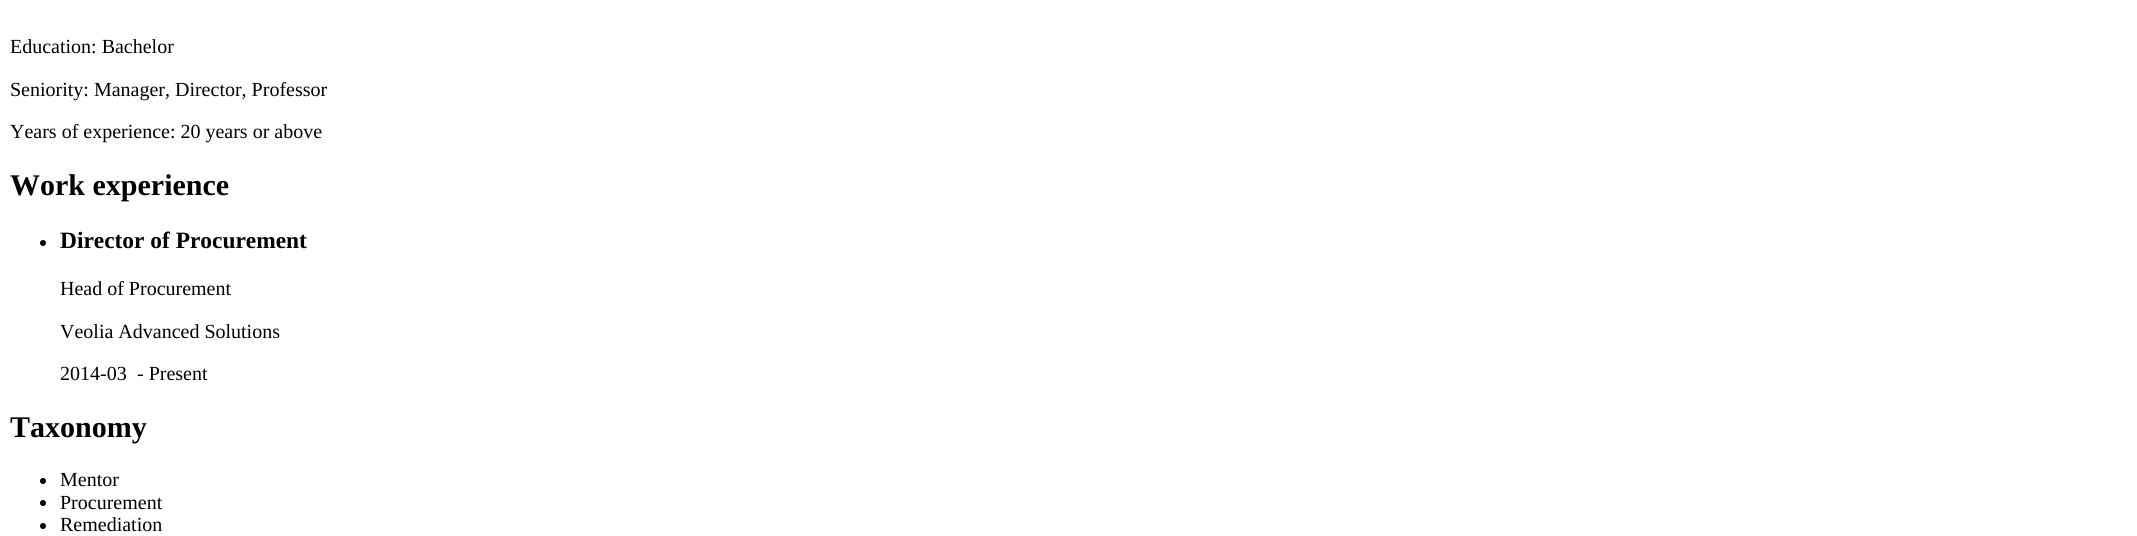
#include <cairo.h>
#include <math.h>
#include <stddef.h>

static cairo_t *c;
static void C(unsigned color){cairo_set_source_rgb(c, (color >> 16) / 255.0, (color >> 8 & 255) / 255.0, (color & 255) / 255.0);}
static void F(const char *family, double size, int italic, int bold){cairo_select_font_face(c, family, italic ? CAIRO_FONT_SLANT_ITALIC : CAIRO_FONT_SLANT_NORMAL,bold ? CAIRO_FONT_WEIGHT_BOLD : CAIRO_FONT_WEIGHT_NORMAL);cairo_set_font_size(c, size);}
static void T(double x, double y, const char *s){cairo_move_to(c, x, y);cairo_show_text(c, s);}
int main(void) {
cairo_surface_t *surface = cairo_image_surface_create(CAIRO_FORMAT_RGB24, 2137, 536);
c = cairo_create(surface);
cairo_font_options_t *options = cairo_font_options_create();
cairo_font_options_set_hint_metrics(options, CAIRO_HINT_METRICS_OFF);
cairo_font_options_set_hint_style(options, CAIRO_HINT_STYLE_NONE);
cairo_set_font_options(c, options);
cairo_set_miter_limit(c, 4);
C(0xffffff);
cairo_paint(c);
F("Liberation Serif",20,0,0);
C(0x000000);
T(10,53,"Education: Bachelor");
T(10,96,"Seniority: Manager, Director, Professor");
T(10,138,"Years of experience: 20 years or above");
F("Liberation Serif",30,0,1);
T(10,195,"Work experience");
cairo_new_path(c);
cairo_arc(c,43,243,3,0,2 * M_PI);
cairo_fill(c);
F("Liberation Serif",23.4,0,1);
T(60,248,"Director of Procurement");
F("Liberation Serif",20,0,0);
T(60,295,"Head of Procurement");
T(60,338,"Veolia Advanced Solutions");
T(60,380,"2014-03");
T(137,380,"- Present");
F("Liberation Serif",30,0,1);
T(10,437,"Taxonomy");
cairo_new_path(c);
cairo_arc(c,43,481,3,0,2 * M_PI);
cairo_fill(c);
F("Liberation Serif",20,0,0);
T(60,486,"Mentor");
cairo_new_path(c);
cairo_arc(c,43,503,3,0,2 * M_PI);
cairo_fill(c);
T(60,509,"Procurement");
cairo_new_path(c);
cairo_arc(c,43,526,3,0,2 * M_PI);
cairo_fill(c);
T(60,531,"Remediation");
cairo_surface_write_to_png(surface, "o.png");
cairo_font_options_destroy(options);
cairo_destroy(c);
cairo_surface_destroy(surface);
return 0;
}
